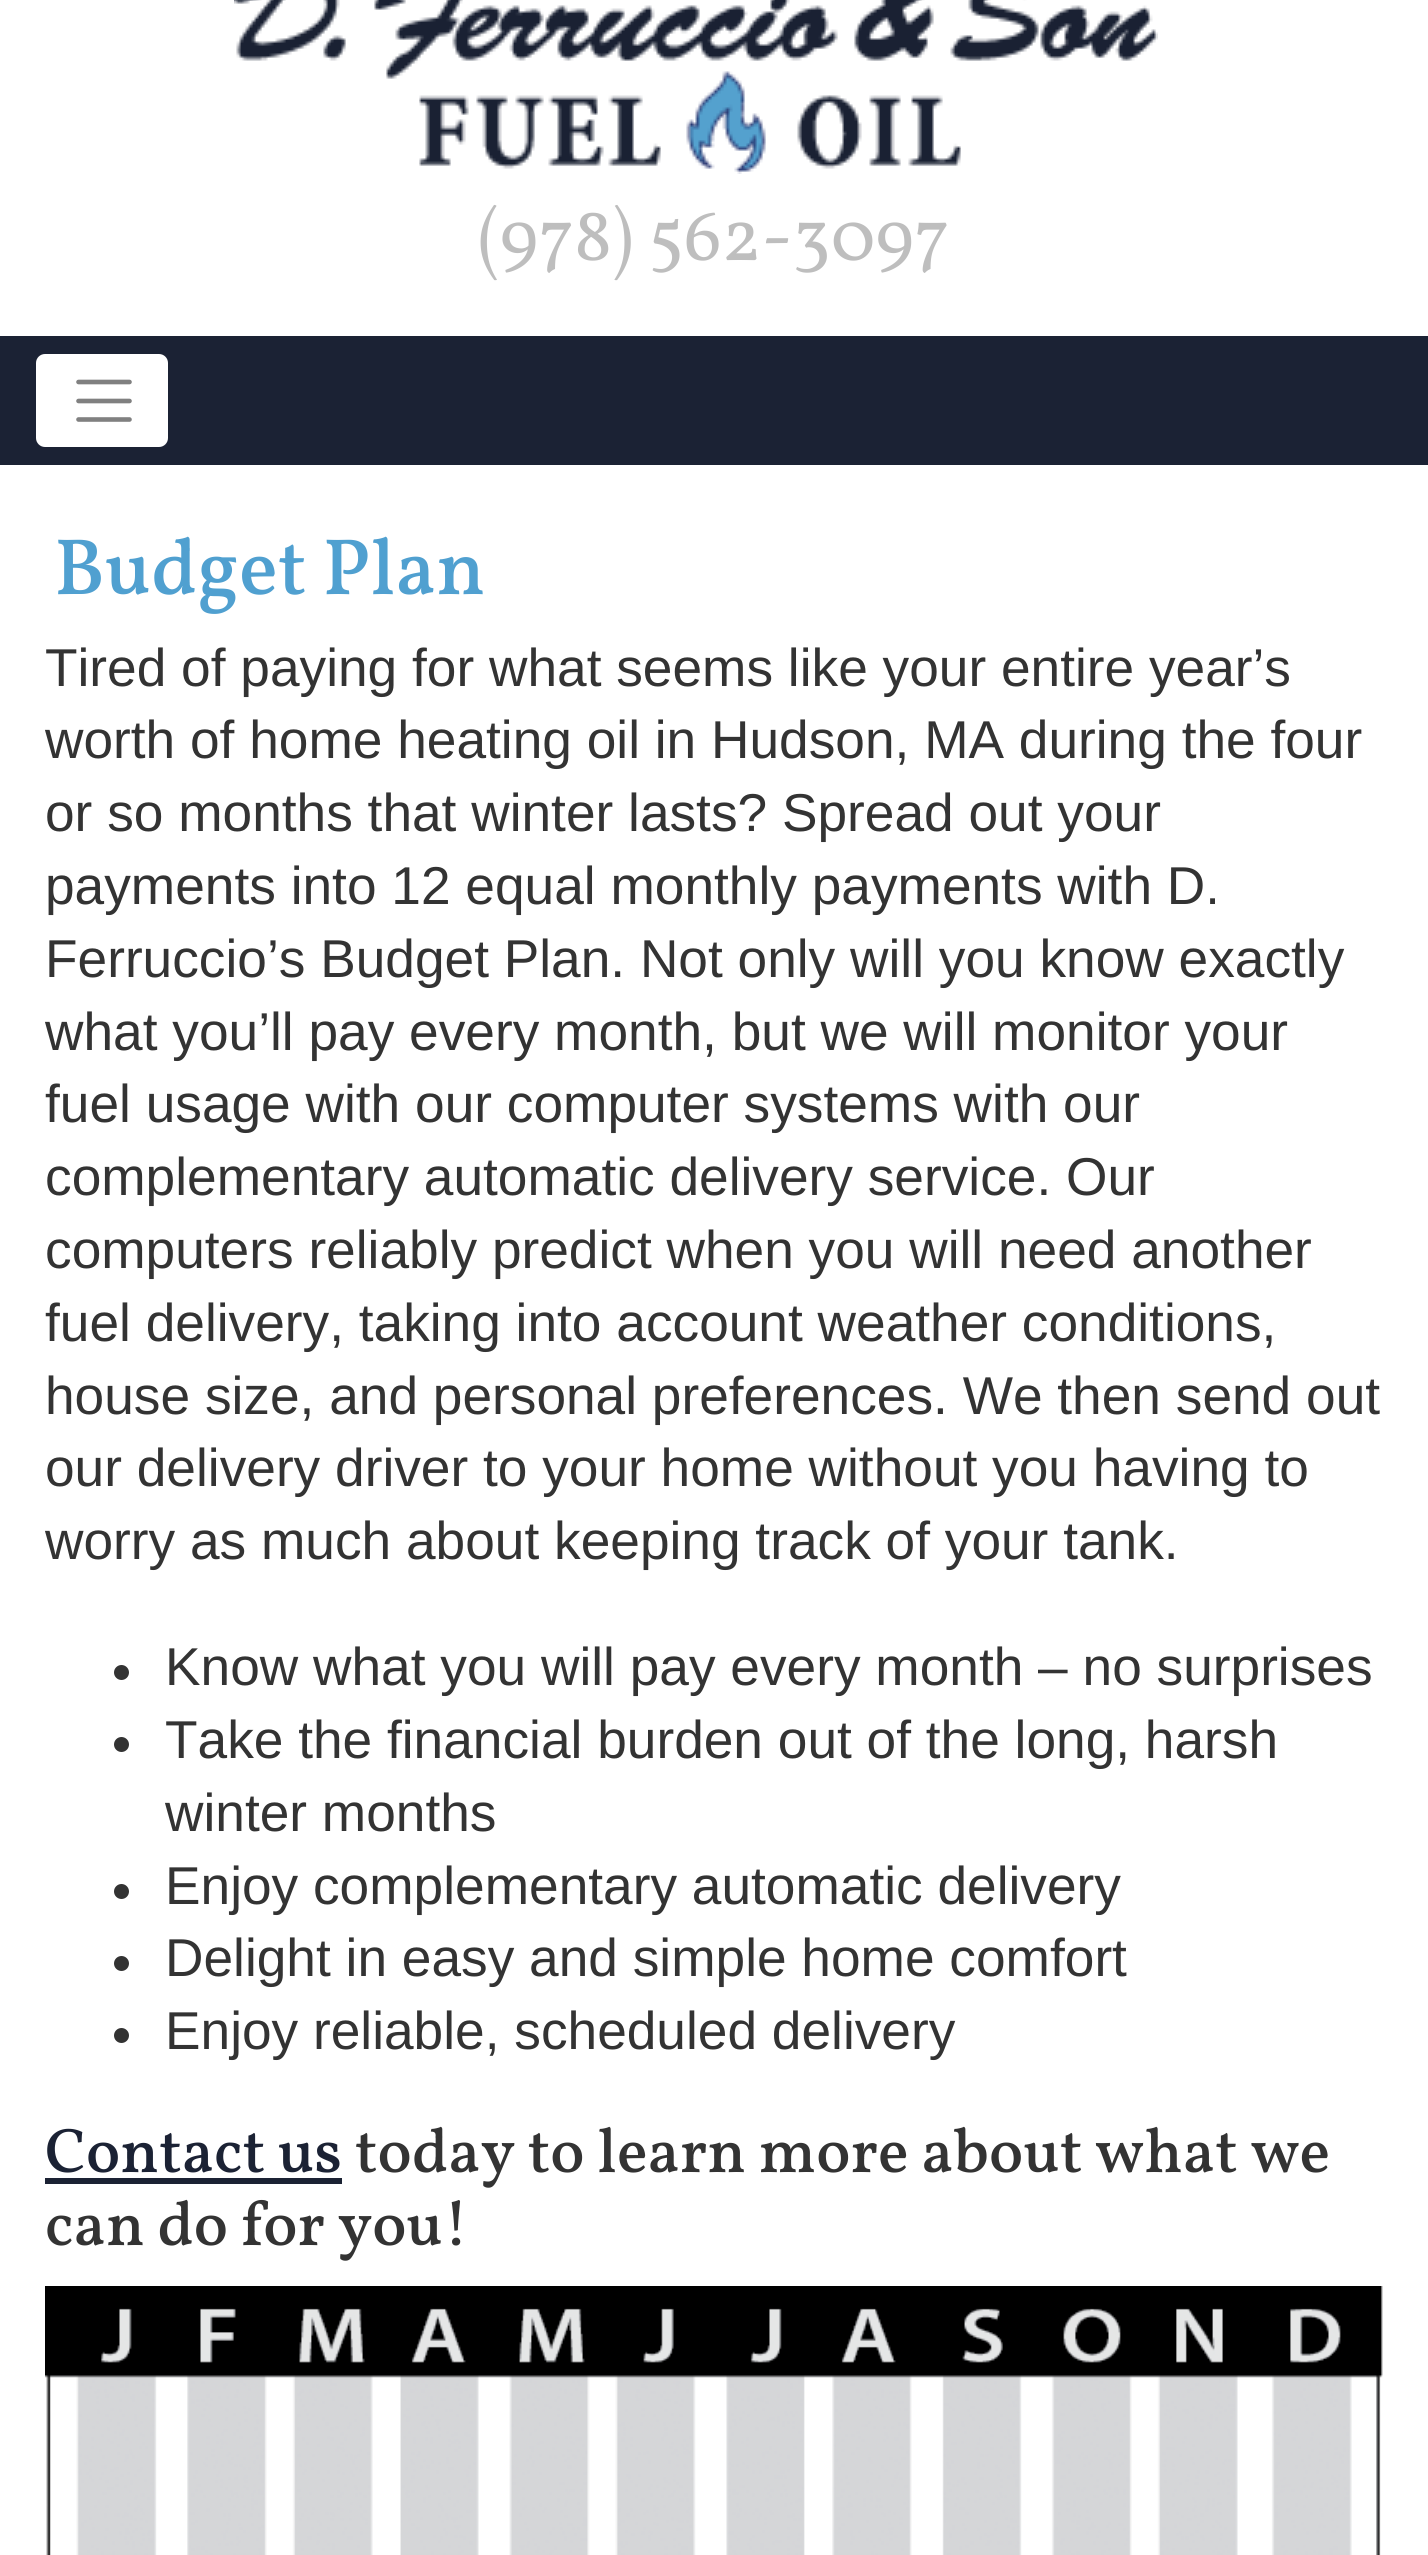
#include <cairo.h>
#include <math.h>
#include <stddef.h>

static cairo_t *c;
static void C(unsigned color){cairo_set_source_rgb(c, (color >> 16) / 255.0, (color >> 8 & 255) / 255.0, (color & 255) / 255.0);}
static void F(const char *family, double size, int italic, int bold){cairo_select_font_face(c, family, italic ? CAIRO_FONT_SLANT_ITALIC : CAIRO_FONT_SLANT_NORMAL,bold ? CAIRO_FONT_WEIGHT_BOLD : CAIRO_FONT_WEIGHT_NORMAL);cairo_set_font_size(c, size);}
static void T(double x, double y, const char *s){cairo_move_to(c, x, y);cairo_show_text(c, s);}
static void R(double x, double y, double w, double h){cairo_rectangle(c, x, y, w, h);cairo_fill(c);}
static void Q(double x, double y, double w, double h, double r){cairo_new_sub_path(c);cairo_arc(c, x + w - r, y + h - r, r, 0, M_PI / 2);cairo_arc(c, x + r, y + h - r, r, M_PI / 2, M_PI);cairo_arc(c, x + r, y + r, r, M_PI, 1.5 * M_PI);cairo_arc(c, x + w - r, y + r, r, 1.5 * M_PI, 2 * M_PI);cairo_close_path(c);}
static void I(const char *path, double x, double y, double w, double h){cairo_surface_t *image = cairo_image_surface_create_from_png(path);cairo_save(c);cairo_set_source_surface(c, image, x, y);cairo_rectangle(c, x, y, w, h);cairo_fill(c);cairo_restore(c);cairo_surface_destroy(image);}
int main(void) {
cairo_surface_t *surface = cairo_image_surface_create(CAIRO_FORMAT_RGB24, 1428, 2555);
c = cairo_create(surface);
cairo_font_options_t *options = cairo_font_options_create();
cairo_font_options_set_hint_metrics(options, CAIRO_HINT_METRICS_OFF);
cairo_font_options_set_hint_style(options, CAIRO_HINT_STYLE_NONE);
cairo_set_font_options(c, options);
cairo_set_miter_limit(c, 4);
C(0xffffff);
cairo_paint(c);
I("1.png",234,0,924,174);
F("Vollkorn",74.25,0,0);
C(0xbebebe);
T(478,260,"(978) 562-3097");
C(0x1b2234);
R(0,336,1428,129);
C(0xffffff);
Q(36,354,132,93,9);
cairo_fill(c);
cairo_new_path(c);
cairo_move_to(c,78.5,382);
cairo_line_to(c,129.5,382);
cairo_move_to(c,78.5,401);
cairo_line_to(c,129.5,401);
cairo_move_to(c,78.5,419.5);
cairo_line_to(c,129.5,419.5);
C(0x808080);
cairo_set_line_width(c,4.6);
cairo_set_line_cap(c,CAIRO_LINE_CAP_ROUND);
cairo_stroke(c);
F("Vollkorn Medium",80,0,0);
C(0x50a0d0);
T(54,594,"Budget Plan");
F("Liberation Sans",53.25,0,0);
C(0x333333);
T(45,686,"Tired of paying for what seems like your entire year’s");
T(45,758,"worth of home heating oil in Hudson, MA during the four");
T(45,831,"or so months that winter lasts? Spread out your");
T(45,904,"payments into 12 equal monthly payments with D.");
T(45,977,"Ferruccio’s Budget Plan. Not only will you know exactly");
T(45,1050,"what you’ll pay every month, but we will monitor your");
T(45,1122,"fuel usage with our computer systems with our");
T(45,1195,"complementary automatic delivery service. Our");
T(45,1268,"computers reliably predict when you will need another");
T(45,1341,"fuel delivery, taking into account weather conditions,");
T(45,1414,"house size, and personal preferences. We then send out");
T(45,1486,"our delivery driver to your home without you having to");
T(45,1559,"worry as much about keeping track of your tank.");
cairo_new_path(c);
cairo_arc(c,121.5,1672.5,7.5,0,2 * M_PI);
cairo_fill(c);
T(165,1685,"Know what you will pay every month – no surprises");
cairo_new_path(c);
cairo_arc(c,121.5,1744.5,7.5,0,2 * M_PI);
cairo_fill(c);
T(165,1758,"Take the financial burden out of the long, harsh");
T(165,1831,"winter months");
cairo_new_path(c);
cairo_arc(c,121.5,1891.5,7.5,0,2 * M_PI);
cairo_fill(c);
T(165,1904,"Enjoy complementary automatic delivery");
cairo_new_path(c);
cairo_arc(c,121.5,1963.5,7.5,0,2 * M_PI);
cairo_fill(c);
T(165,1976,"Delight in easy and simple home comfort");
cairo_new_path(c);
cairo_arc(c,121.5,2035.5,7.5,0,2 * M_PI);
cairo_fill(c);
T(165,2049,"Enjoy reliable, scheduled delivery");
F("Vollkorn Medium",63.1,0,0);
C(0x1b2234);
T(45,2172,"Contact us");
R(45,2178,297,6);
C(0x333333);
T(355,2172,"today to learn more about what we");
T(45,2245,"can do for you!");
I("2.png",45,2286,1338,269);
cairo_surface_write_to_png(surface, "o.png");
cairo_font_options_destroy(options);
cairo_destroy(c);
cairo_surface_destroy(surface);
return 0;
}
